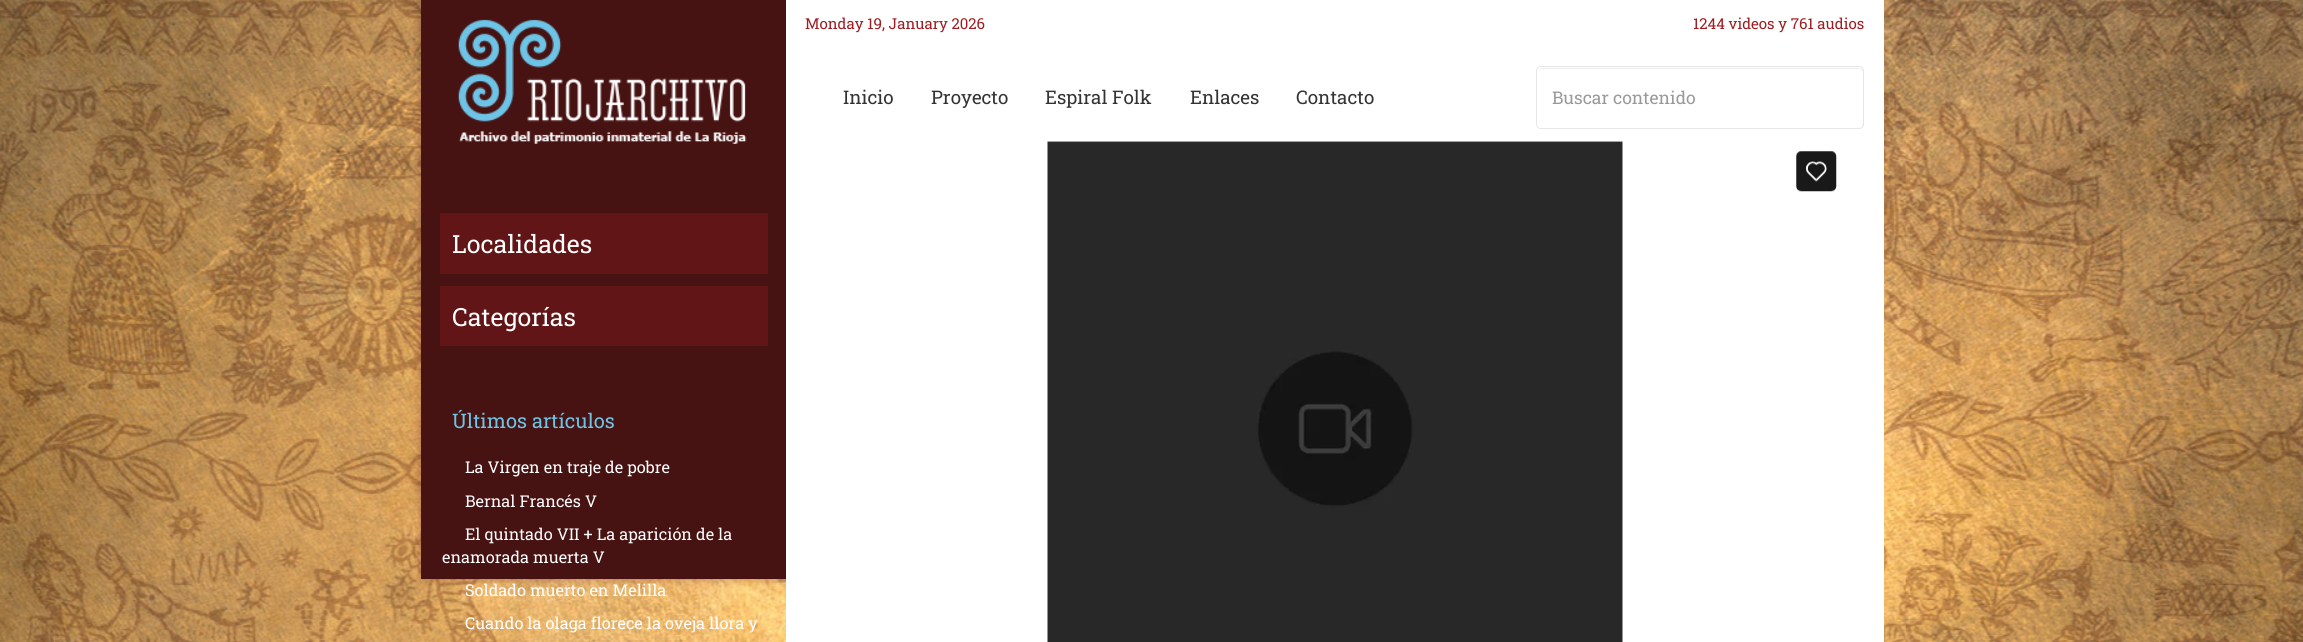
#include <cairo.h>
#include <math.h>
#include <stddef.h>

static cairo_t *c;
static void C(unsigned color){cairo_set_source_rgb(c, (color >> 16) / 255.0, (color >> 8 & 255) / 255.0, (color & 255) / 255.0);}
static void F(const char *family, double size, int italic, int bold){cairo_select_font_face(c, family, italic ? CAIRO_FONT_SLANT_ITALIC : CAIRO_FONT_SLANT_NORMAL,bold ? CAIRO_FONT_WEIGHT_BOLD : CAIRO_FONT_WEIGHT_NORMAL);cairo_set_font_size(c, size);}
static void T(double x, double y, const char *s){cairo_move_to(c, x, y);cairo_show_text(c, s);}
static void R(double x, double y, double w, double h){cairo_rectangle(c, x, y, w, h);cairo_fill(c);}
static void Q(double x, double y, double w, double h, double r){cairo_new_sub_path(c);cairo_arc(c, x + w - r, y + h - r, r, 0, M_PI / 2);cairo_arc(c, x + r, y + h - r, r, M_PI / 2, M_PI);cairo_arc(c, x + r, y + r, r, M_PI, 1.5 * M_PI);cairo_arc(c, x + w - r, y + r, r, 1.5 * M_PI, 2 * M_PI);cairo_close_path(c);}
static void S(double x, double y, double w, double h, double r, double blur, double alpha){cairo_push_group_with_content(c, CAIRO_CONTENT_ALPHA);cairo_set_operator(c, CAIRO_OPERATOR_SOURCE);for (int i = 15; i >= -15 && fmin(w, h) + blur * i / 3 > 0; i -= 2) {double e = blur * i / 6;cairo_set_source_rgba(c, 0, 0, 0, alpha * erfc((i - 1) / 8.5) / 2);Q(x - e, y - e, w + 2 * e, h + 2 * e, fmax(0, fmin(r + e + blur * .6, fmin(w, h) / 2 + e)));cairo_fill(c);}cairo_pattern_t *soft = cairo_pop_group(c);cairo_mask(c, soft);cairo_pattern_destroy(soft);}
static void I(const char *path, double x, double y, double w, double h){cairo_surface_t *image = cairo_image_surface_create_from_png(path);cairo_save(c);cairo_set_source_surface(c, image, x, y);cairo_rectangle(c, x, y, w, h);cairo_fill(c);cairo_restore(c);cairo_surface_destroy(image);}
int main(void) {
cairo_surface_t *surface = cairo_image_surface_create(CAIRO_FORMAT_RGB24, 2303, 642);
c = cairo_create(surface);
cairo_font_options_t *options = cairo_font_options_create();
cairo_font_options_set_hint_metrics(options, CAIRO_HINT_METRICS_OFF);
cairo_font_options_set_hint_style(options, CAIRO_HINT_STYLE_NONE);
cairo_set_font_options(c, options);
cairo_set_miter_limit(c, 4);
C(0xffffff);
cairo_paint(c);
I("1.png",0,0,2303,642);
C(0x510c0f);
S(421,0,365,579,0,5,.4);
C(0xffffff);
R(786,0,1098,642);
F("Roboto Slab",15,0,0);
C(0xa01b20);
T(805,29,"Monday 19, January 2026");
T(1693,29,"1244 videos y 761 audios");
F("Roboto Slab",18.75,0,0);
C(0x333333);
T(843,104,"Inicio");
T(931,104,"Proyecto");
T(1045,104,"Espiral Folk");
T(1190,104,"Enlaces");
T(1296,104,"Contacto");
C(0xececec);
cairo_new_path(c);
cairo_move_to(c,1541,69);
cairo_line_to(c,1859,69);
cairo_curve_to(c,1861,69,1862,70,1862,72);
cairo_line_to(c,1862,125);
cairo_line_to(c,1862,127);
cairo_curve_to(c,1862,126,1863,125,1863,124);
cairo_line_to(c,1863,72);
cairo_curve_to(c,1863,70,1861,68,1859,68);
cairo_line_to(c,1542,68);
cairo_curve_to(c,1541,68,1539,69,1539,70);
cairo_close_path(c);
cairo_fill(c);
Q(1536.5,66.5,327,62,4.5);
C(0xe7e7e7);
cairo_set_line_width(c,1);
cairo_stroke(c);
F("Roboto Slab",17.5,0,0);
C(0x999999);
T(1552,104,"Buscar contenido");
C(0xffffff);
R(1862,71,1,53);
I("2.png",1047,141,790,501);
C(0x471312);
R(421,0,365,579);
I("3.png",458,19,289,125);
C(0x621516);
R(440,213,328,61);
F("Roboto Slab",25,0,0);
C(0xffffff);
T(452,253,"Localidades");
C(0x621516);
R(440,286,328,60);
C(0xffffff);
T(452,326,"Categorías");
F("Roboto Slab",20,0,0);
C(0x6dc4e6);
T(452,428,"Últimos artículos");
F("Roboto Slab",16.25,0,0);
C(0xffffff);
T(465,473,"La Virgen en traje de pobre");
T(465,507,"Bernal Francés V");
T(465,540,"El quintado VII + La aparición de la");
T(442,563,"enamorada muerta V");
T(465,596,"Soldado muerto en Melilla");
T(465,629,"Cuando la olaga florece la oveja llora y");
cairo_surface_write_to_png(surface, "o.png");
cairo_font_options_destroy(options);
cairo_destroy(c);
cairo_surface_destroy(surface);
return 0;
}
